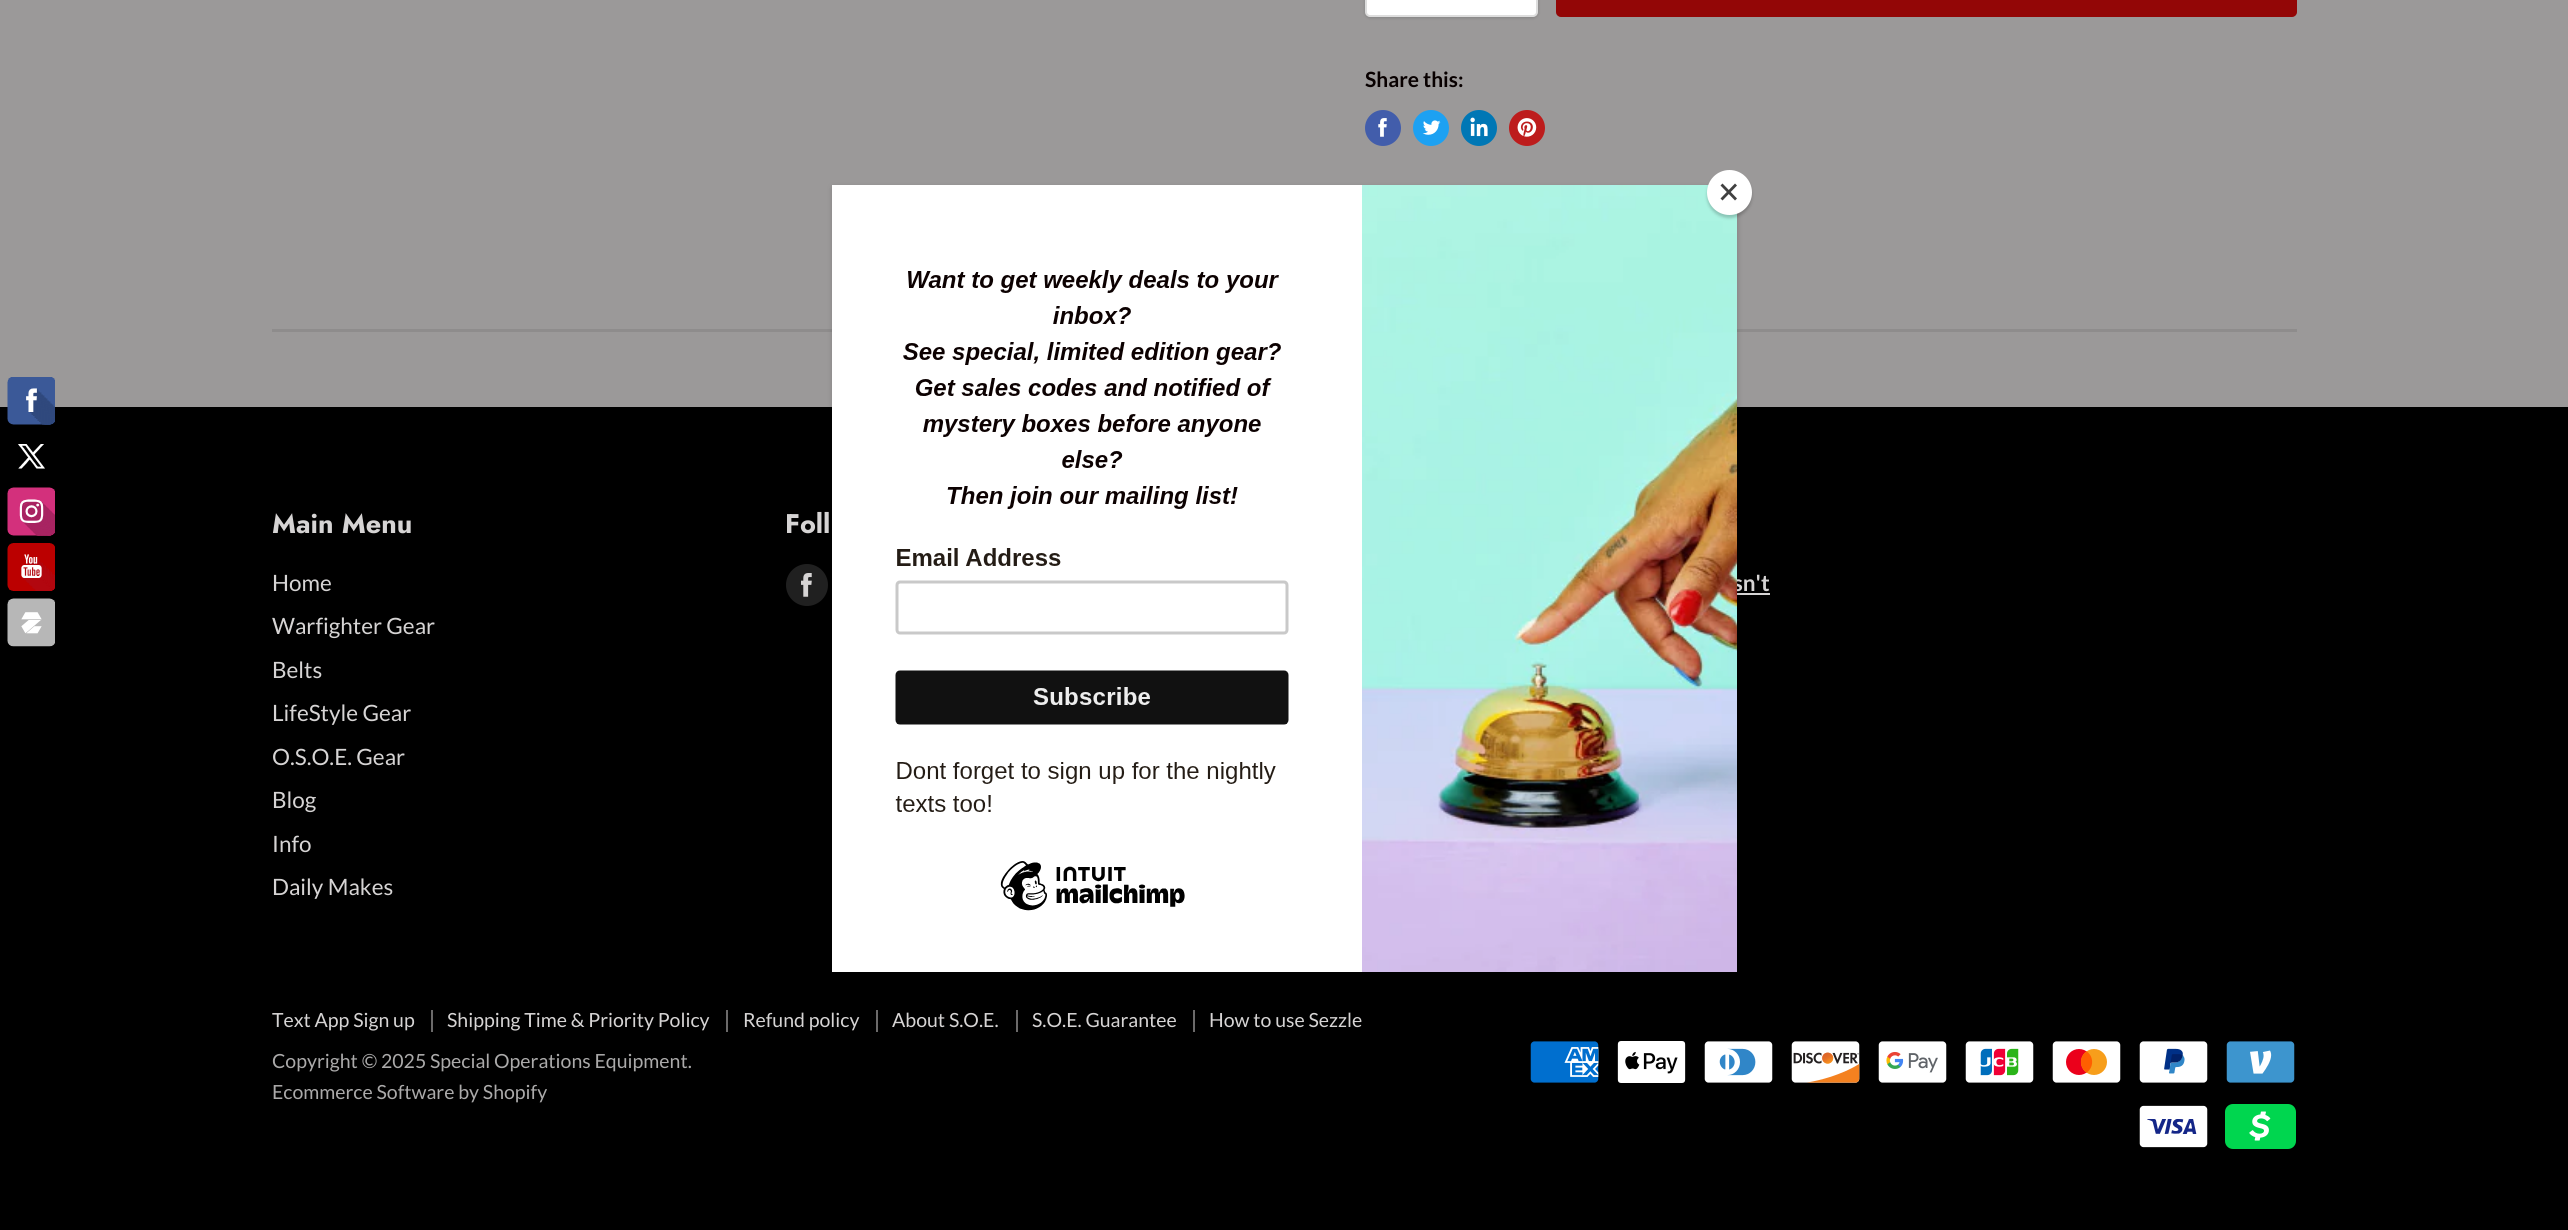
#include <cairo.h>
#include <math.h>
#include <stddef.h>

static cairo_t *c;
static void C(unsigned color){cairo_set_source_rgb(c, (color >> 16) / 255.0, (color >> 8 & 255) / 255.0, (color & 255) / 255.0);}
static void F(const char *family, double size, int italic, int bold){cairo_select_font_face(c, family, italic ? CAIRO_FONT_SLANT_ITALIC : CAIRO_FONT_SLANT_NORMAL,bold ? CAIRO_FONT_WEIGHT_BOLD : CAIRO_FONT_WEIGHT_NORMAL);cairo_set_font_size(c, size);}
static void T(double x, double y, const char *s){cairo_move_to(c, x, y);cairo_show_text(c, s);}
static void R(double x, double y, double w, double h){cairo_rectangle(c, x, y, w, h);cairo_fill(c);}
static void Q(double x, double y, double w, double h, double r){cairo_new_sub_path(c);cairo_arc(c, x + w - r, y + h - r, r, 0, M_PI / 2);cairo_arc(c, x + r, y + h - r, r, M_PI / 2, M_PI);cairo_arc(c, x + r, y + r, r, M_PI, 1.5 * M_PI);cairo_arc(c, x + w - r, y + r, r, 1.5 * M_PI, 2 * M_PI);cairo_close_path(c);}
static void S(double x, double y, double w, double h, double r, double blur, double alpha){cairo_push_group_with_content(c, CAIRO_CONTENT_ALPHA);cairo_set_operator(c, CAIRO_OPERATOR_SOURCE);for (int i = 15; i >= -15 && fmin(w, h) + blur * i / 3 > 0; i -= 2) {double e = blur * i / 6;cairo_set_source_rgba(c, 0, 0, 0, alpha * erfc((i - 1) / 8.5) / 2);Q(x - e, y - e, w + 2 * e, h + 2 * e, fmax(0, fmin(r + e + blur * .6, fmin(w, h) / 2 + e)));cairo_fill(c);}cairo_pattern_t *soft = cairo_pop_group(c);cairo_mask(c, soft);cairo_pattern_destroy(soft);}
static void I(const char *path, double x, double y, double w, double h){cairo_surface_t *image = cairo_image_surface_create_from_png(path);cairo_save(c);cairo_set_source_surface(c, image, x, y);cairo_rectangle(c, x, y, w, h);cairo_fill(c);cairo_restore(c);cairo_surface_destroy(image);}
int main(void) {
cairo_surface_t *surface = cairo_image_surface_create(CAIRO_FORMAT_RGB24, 2568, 1230);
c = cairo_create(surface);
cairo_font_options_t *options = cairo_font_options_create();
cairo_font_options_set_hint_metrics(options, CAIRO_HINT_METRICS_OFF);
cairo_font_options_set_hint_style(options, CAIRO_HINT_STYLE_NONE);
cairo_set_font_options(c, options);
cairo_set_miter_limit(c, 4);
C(0x9b9999);
cairo_paint(c);
C(0x000000);
S(1365,-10,173,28,5,1.5,.15);
C(0xffffff);
Q(1366,-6,171,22,4);
cairo_fill_preserve(c);
C(0xdddddd);
cairo_stroke(c);
C(0x930606);
Q(1557,-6,739,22,4);
cairo_fill_preserve(c);
cairo_stroke(c);
F("Lato",21,0,1);
C(0x080000);
T(1365,87,"Share this:");
C(0x425dab);
cairo_new_path(c);
cairo_arc(c,1383,128,18,0,2 * M_PI);
cairo_fill(c);
I("1.png",1378,118,9,19);
C(0x1da1f2);
cairo_arc(c,1431,128,18,0,2 * M_PI);
cairo_fill(c);
I("2.png",1422,120,19,15);
C(0x0077b5);
cairo_arc(c,1479,128,18,0,2 * M_PI);
cairo_fill(c);
I("3.png",1470,117,18,20);
C(0xbd1c1c);
cairo_arc(c,1527,128,18,0,2 * M_PI);
cairo_fill(c);
I("4.png",1517,118,20,19);
C(0x8e8c8c);
R(272,329,2025,3);
C(0x000000);
R(0,407,2568,823);
I("5.png",7,377,48,270);
C(0x202020);
cairo_arc(c,807,585,21,0,2 * M_PI);
cairo_fill(c);
C(0xd6d4d4);
R(1737,593,33,2);
C(0x000000);
S(833,188,904,787,0,3,.2);
F("Lato",22.5,0,1);
C(0xd6d4d4);
T(1733,591,"sn't");
I("6.png",832,185,905,787);
C(0x000000);
S(1707,173,45,45,22.5,1.5,.2);
C(0xffffff);
cairo_arc(c,1729.5,192.5,22.5,0,2 * M_PI);
cairo_fill(c);
C(0x414141);
cairo_new_path(c);
cairo_move_to(c,1735,183.5);
cairo_line_to(c,1737,185.5);
cairo_line_to(c,1722.5,200.5);
cairo_line_to(c,1720.5,198.5);
cairo_close_path(c);
cairo_fill(c);
cairo_new_path(c);
cairo_move_to(c,1720.5,185.5);
cairo_line_to(c,1722.5,183.5);
cairo_line_to(c,1737,198.5);
cairo_line_to(c,1735,200.5);
cairo_close_path(c);
cairo_fill(c);
F("Jost",27,0,1);
C(0xd6d4d4);
T(272,533,"Main Menu");
F("Lato",22.5,0,0);
T(272,591,"Home");
T(272,634,"Warfighter Gear");
T(272,678,"Belts");
T(272,721,"LifeStyle Gear");
T(272,765,"O.S.O.E. Gear");
T(272,808,"Blog");
T(272,852,"Info");
T(272,895,"Daily Makes");
F("Jost",27,0,1);
T(785,533,"Foll");
I("7.png",801,573,11,24);
C(0x6b6a6a);
R(431,1010,2,22);
F("Lato",19.5,0,0);
C(0xd6d4d4);
T(272,1027,"Text App Sign up");
C(0x6b6a6a);
R(726,1010,2,22);
C(0xd6d4d4);
T(447,1027,"Shipping Time & Priority Policy");
C(0x6b6a6a);
R(876,1010,2,22);
C(0xd6d4d4);
T(743,1027,"Refund policy");
C(0x6b6a6a);
R(1016,1010,2,22);
C(0xd6d4d4);
T(892,1027,"About S.O.E.");
C(0x6b6a6a);
R(1193,1010,2,22);
C(0xd6d4d4);
T(1032,1027,"S.O.E. Guarantee");
T(1209,1027,"How to use Sezzle");
C(0xabaaaa);
T(272,1068,"Copyright © 2025 Special Operations Equipment.");
T(272,1099,"Ecommerce Software by Shopify");
I("8.png",1530,1041,69,42);
I("9.png",1617,1041,69,42);
I("10.png",1704,1041,69,42);
I("11.png",1791,1041,69,42);
I("12.png",1878,1041,69,42);
I("13.png",1965,1041,69,42);
I("14.png",2052,1041,69,42);
I("15.png",2139,1041,69,42);
I("16.png",2226,1041,69,42);
I("17.png",2139,1105,69,43);
I("18.png",2225,1104,71,45);
cairo_surface_write_to_png(surface, "o.png");
cairo_font_options_destroy(options);
cairo_destroy(c);
cairo_surface_destroy(surface);
return 0;
}
